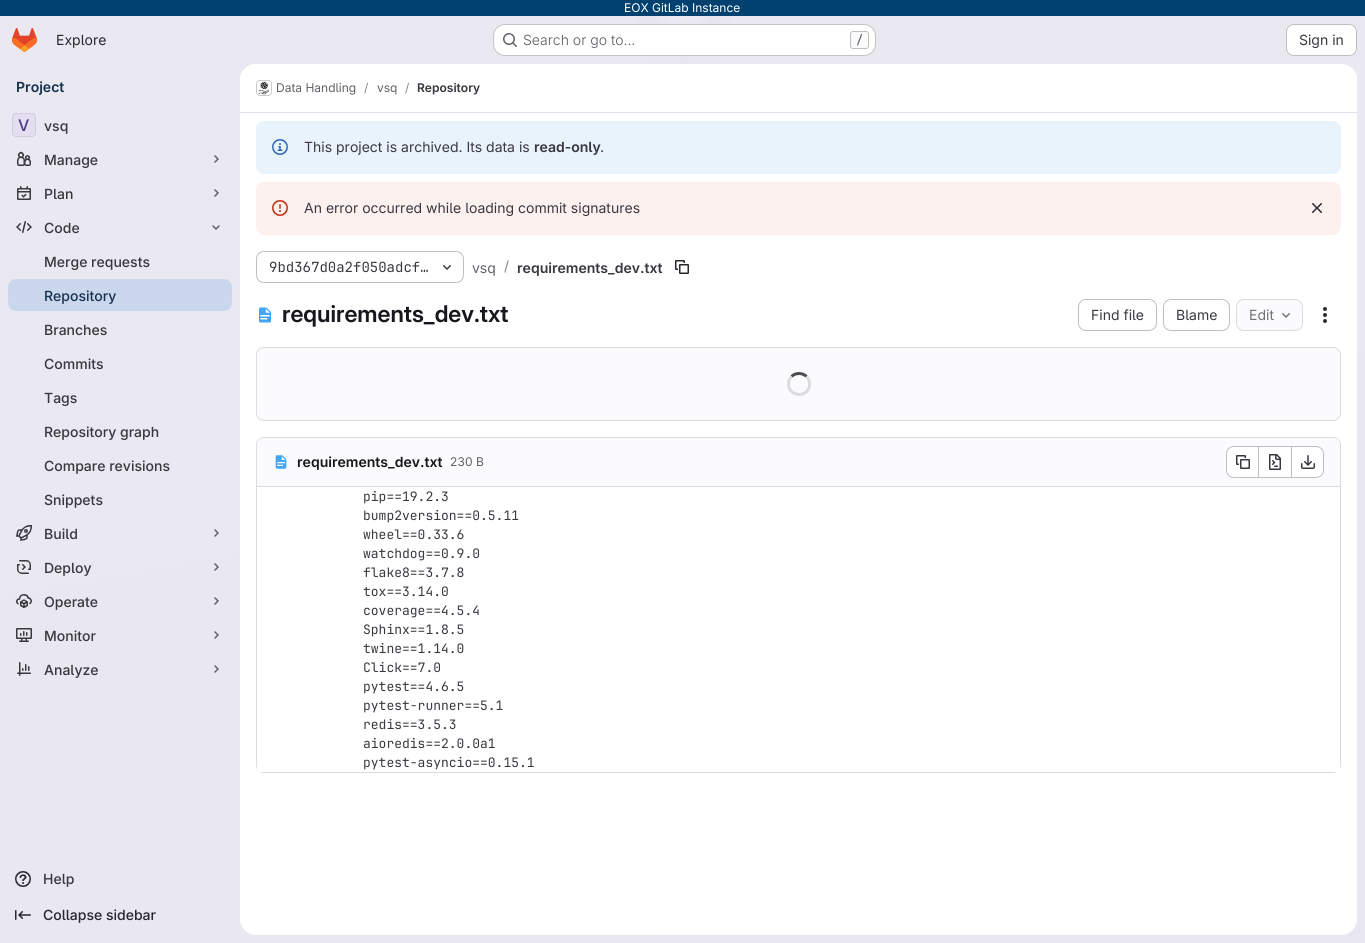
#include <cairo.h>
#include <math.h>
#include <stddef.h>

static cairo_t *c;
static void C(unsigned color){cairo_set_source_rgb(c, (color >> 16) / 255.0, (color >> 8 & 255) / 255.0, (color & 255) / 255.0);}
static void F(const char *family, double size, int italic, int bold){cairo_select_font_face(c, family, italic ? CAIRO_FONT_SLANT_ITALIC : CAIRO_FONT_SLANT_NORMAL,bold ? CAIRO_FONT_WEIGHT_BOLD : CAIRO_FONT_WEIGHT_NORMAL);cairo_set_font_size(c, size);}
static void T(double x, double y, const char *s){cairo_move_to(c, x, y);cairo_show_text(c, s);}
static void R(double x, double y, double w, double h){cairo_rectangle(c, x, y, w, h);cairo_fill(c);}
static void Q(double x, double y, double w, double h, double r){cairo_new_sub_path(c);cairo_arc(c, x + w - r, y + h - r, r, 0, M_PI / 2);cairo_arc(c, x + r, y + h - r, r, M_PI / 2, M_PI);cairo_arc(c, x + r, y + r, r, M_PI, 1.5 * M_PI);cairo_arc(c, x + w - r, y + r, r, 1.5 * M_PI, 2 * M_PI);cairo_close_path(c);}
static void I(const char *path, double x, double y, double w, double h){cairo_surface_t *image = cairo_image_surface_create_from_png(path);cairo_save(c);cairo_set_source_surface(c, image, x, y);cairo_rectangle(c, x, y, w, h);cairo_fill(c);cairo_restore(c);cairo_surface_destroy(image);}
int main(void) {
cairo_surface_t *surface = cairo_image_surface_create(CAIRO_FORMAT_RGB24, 1365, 943);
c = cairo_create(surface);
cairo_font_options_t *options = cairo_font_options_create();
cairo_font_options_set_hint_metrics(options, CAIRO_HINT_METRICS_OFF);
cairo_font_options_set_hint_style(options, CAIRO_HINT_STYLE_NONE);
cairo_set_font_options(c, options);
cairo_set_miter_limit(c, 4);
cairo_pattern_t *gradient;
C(0xffffff);
cairo_paint(c);
gradient = cairo_pattern_create_linear(784,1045,581,-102);
cairo_pattern_add_color_stop_rgba(gradient,0,0.91,0.902,0.941,1);
cairo_pattern_add_color_stop_rgba(gradient,.7,0.918,0.914,0.949,1);
cairo_set_source(c,gradient);
cairo_pattern_destroy(gradient);
R(0,16,1365,927);
gradient = cairo_pattern_create_radial(0,0,0,0,0,1);
cairo_pattern_set_matrix(gradient, &(cairo_matrix_t){1.0 / 683, 0, 0, 1.0 / 943, -1.0 * 683 / 683, -1.0 * 0 / 943});
cairo_pattern_add_color_stop_rgba(gradient,0,0.894,0.886,0.929,1);
cairo_pattern_add_color_stop_rgba(gradient,.1,0.894,0.886,0.929,0);
cairo_set_source(c,gradient);
cairo_pattern_destroy(gradient);
R(636,16,94,48);
gradient = cairo_pattern_create_radial(683,0,0,683,0,1164);
cairo_pattern_add_color_stop_rgba(gradient,0,1,1,1,.6);
cairo_pattern_add_color_stop_rgba(gradient,.03,1,1,1,0);
cairo_set_source(c,gradient);
cairo_pattern_destroy(gradient);
R(655,16,56,8);
C(0x004170);
R(0,0,1365,16);
F("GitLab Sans",12,0,0);
C(0xffffff);
T(624,12,"EOX GitLab Instance");
I("1.png",12,28,25,24);
F("GitLab Sans",14,0,0);
C(0x28272d);
T(56,45,"Explore");
C(0xffffff);
Q(493,24,383,32,12);
cairo_fill(c);
Q(493.5,24.5,382,31,11.5);
cairo_set_source_rgba(c,0.02,0.02,0.024,0.24);
cairo_set_line_width(c,1);
cairo_stroke(c);
I("2.png",503,33,14,14);
F("GitLab Sans Light",14,0,0);
C(0x626168);
T(523,45,"Search or go to…");
C(0xfbfafd);
Q(850.5,31.5,18,17,2.5);
cairo_fill_preserve(c);
C(0xbfbfc3);
cairo_stroke(c);
F("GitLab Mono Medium",12,0,0);
C(0x626168);
T(856,44,"/");
C(0xffffff);
Q(1286.5,24.5,70,31,7.5);
cairo_fill_preserve(c);
C(0xbfbfc3);
cairo_stroke(c);
F("GitLab Sans",14,0,0);
C(0x3a383f);
T(1299,45,"Sign in");
F("GitLab Sans SemiBold",14,0,0);
C(0x18334e);
T(16,92,"Project");
C(0xe3def2);
Q(12,113,24,24,4);
cairo_fill(c);
Q(12.5,113.5,23,23,3.5);
cairo_set_source_rgba(c,0.02,0.02,0.024,0.08);
cairo_stroke(c);
F("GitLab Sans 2 Medium",16,0,0);
C(0x493c83);
T(18,131,"V");
F("GitLab Sans Medium",14,0,0);
C(0x3a383f);
T(44,131,"vsq");
I("3.png",17,151,14,15);
T(44,165,"Manage");
cairo_new_path(c);
cairo_move_to(c,215,156);
cairo_line_to(c,218,159);
cairo_line_to(c,215,162);
C(0x626168);
cairo_set_line_width(c,1.5);
cairo_set_line_cap(c,CAIRO_LINE_CAP_ROUND);
cairo_set_line_join(c,CAIRO_LINE_JOIN_ROUND);
cairo_stroke(c);
I("4.png",17,186,14,14);
C(0x3a383f);
T(44,199,"Plan");
cairo_new_path(c);
cairo_move_to(c,215,190);
cairo_line_to(c,218,193);
cairo_line_to(c,215,196);
C(0x626168);
cairo_stroke(c);
I("5.png",16,221,16,12);
C(0x3a383f);
T(44,233,"Code");
cairo_new_path(c);
cairo_move_to(c,219,226);
cairo_line_to(c,216,229);
cairo_line_to(c,213,226);
C(0x626168);
cairo_stroke(c);
C(0x3a383f);
T(44,267,"Merge requests");
C(0xcad7ec);
Q(8,279,224,32,8);
cairo_fill(c);
C(0x18334e);
T(44,301,"Repository");
C(0x3a383f);
T(44,335,"Branches");
T(44,369,"Commits");
T(44,403,"Tags");
T(44,437,"Repository graph");
T(44,471,"Compare revisions");
T(44,505,"Snippets");
I("6.png",16,525,16,16);
T(44,539,"Build");
cairo_new_path(c);
cairo_move_to(c,215,530);
cairo_line_to(c,218,533);
cairo_line_to(c,215,536);
C(0x626168);
cairo_stroke(c);
I("7.png",17,560,14,14);
C(0x3a383f);
T(44,573,"Deploy");
cairo_new_path(c);
cairo_move_to(c,215,564);
cairo_line_to(c,218,567);
cairo_line_to(c,215,570);
C(0x626168);
cairo_stroke(c);
I("8.png",16,594,16,15);
C(0x3a383f);
T(44,607,"Operate");
cairo_new_path(c);
cairo_move_to(c,215,598);
cairo_line_to(c,218,601);
cairo_line_to(c,215,604);
C(0x626168);
cairo_stroke(c);
I("9.png",16,628,16,14);
C(0x3a383f);
T(44,641,"Monitor");
cairo_new_path(c);
cairo_move_to(c,215,632);
cairo_line_to(c,218,635);
cairo_line_to(c,215,638);
C(0x626168);
cairo_stroke(c);
I("10.png",17,662,14,14);
C(0x3a383f);
T(44,675,"Analyze");
cairo_new_path(c);
cairo_move_to(c,215,666);
cairo_line_to(c,218,669);
cairo_line_to(c,215,672);
C(0x626168);
cairo_stroke(c);
I("11.png",15,871,16,16);
C(0x3a383f);
T(43,884,"Help");
I("12.png",15,910,16,10);
C(0x28272d);
T(43,920,"Collapse sidebar");
C(0xffffff);
Q(240,64,1117,871,16);
cairo_fill(c);
cairo_new_path(c);
cairo_move_to(c,256,64);
cairo_line_to(c,1341,64);
cairo_curve_to(c,1350,64,1357,71,1357,80);
cairo_line_to(c,1357,113);
cairo_line_to(c,240,113);
cairo_line_to(c,240,80);
cairo_curve_to(c,240,71,247,64,256,64);
cairo_close_path(c);
cairo_fill(c);
C(0xe1dfec);
R(240,112,1117,1);
Q(256.5,80.5,15,15,3.5);
C(0xdcdcde);
cairo_set_line_width(c,1);
cairo_set_line_cap(c,CAIRO_LINE_CAP_BUTT);
cairo_set_line_join(c,CAIRO_LINE_JOIN_MITER);
cairo_stroke(c);
I("13.png",257,81,14,14);
Q(256.5,80.5,15,15,3.5);
cairo_set_source_rgba(c,0.02,0.02,0.024,0.08);
cairo_stroke(c);
F("GitLab Sans",12,0,0);
C(0x626168);
T(276,92,"Data Handling");
C(0x89888d);
T(364,92,"/");
C(0x626168);
T(377,92,"vsq");
C(0x89888d);
T(405,92,"/");
F("GitLab Sans SemiBold",12,0,0);
C(0x3a383f);
T(417,92,"Repository");
C(0xe9f3fc);
Q(256,121,1085,53,8);
cairo_fill(c);
I("14.png",272,139,16,16);
F("GitLab Sans",14,0,0);
C(0x3a383f);
T(304,152,"This project is archived. Its data is");
F("GitLab Sans SemiBold",14,0,0);
T(534,152,"read-only");
F("GitLab Sans",14,0,0);
T(600,152,".");
C(0xfcf1ef);
Q(256,182,1085,53,8);
cairo_fill(c);
I("15.png",272,200,16,16);
C(0x3a383f);
T(304,213,"An error occurred while loading commit signatures");
I("16.png",1312,203,10,10);
Q(256.5,251.5,207,31,7.5);
C(0xbfbfc3);
cairo_stroke(c);
F("GitLab Mono",14,0,0);
C(0x3a383f);
T(269,272,"9bd367d0a2f050adcf…");
I("17.png",443,265,8,5);
F("GitLab Sans",14,0,0);
C(0x626168);
T(472,273,"vsq");
C(0x89888d);
T(504,271,"/");
F("GitLab Sans SemiBold",14,0,0);
C(0x3a383f);
T(517,273,"requirements_dev.txt");
I("18.png",675,260,14,14);
I("19.png",259,307,12,16);
F("GitLab Sans 2 SemiBold",23,0,0);
C(0x18171d);
T(282,322,"requirements_dev.txt");
Q(1078.5,299.5,78,31,7.5);
C(0xbfbfc3);
cairo_stroke(c);
F("GitLab Sans",14,0,0);
C(0x3a383f);
T(1091,320,"Find file");
Q(1163.5,299.5,66,31,7.5);
C(0xbfbfc3);
cairo_stroke(c);
C(0x3a383f);
T(1176,320,"Blame");
C(0xfbfafd);
Q(1236.5,299.5,66,31,7.5);
cairo_fill_preserve(c);
C(0xdcdcde);
cairo_stroke(c);
C(0x737278);
T(1249,320,"Edit");
I("20.png",1282,313,8,5);
I("21.png",1323,307,4,16);
C(0xfbfafd);
Q(256.5,347.5,1084,73,7.5);
cairo_fill_preserve(c);
C(0xdcdcde);
cairo_stroke(c);
cairo_new_path(c);
cairo_move_to(c,791.5,376.5);
cairo_curve_to(c,795.5,372.5,802.5,372.5,806.5,376.5);
C(0x4c4b51);
cairo_set_line_width(c,3);
cairo_stroke(c);
cairo_new_path(c);
cairo_move_to(c,806.5,376.5);
cairo_curve_to(c,809,379,810,382.5,809.5,386);
cairo_curve_to(c,807,398.5,788.5,396.5,788.5,384);
cairo_curve_to(c,788.5,381,789.5,378.5,791.5,376.5);
C(0xdcdcde);
cairo_stroke(c);
Q(256.5,437.5,1084,335,7.5);
cairo_set_line_width(c,1);
cairo_stroke(c);
C(0xfbfafd);
cairo_new_path(c);
cairo_move_to(c,264,438);
cairo_line_to(c,1333,438);
cairo_curve_to(c,1337,438,1340,441,1340,445);
cairo_line_to(c,1340,487);
cairo_line_to(c,257,487);
cairo_line_to(c,257,445);
cairo_curve_to(c,257,441,260,438,264,438);
cairo_close_path(c);
cairo_fill(c);
C(0xdcdcde);
R(257,486,1083,1);
I("22.png",275,455,12,14);
F("GitLab Sans SemiBold",14,0,0);
C(0x18171d);
T(297,467,"requirements_dev.txt");
F("GitLab Sans",12,0,0);
C(0x626168);
T(450,466,"230 B");
C(0xffffff);
cairo_new_path(c);
cairo_move_to(c,1234,447);
cairo_line_to(c,1258,447);
cairo_line_to(c,1258,477);
cairo_line_to(c,1234,477);
cairo_curve_to(c,1230,477,1227,474,1227,470);
cairo_line_to(c,1227,454);
cairo_curve_to(c,1227,450,1230,447,1234,447);
cairo_close_path(c);
cairo_fill(c);
C(0xbfbfc3);
cairo_set_fill_rule(c,CAIRO_FILL_RULE_EVEN_ODD);
cairo_new_path(c);
cairo_move_to(c,1234,446);
cairo_line_to(c,1258,446);
cairo_line_to(c,1258,478);
cairo_line_to(c,1234,478);
cairo_curve_to(c,1229.5,478,1226,474.5,1226,470);
cairo_line_to(c,1226,454);
cairo_curve_to(c,1226,449.5,1229.5,446,1234,446);
cairo_close_path(c);
cairo_move_to(c,1234,447);
cairo_line_to(c,1258,447);
cairo_line_to(c,1258,477);
cairo_line_to(c,1234,477);
cairo_curve_to(c,1230,477,1227,474,1227,470);
cairo_line_to(c,1227,454);
cairo_curve_to(c,1227,450,1230,447,1234,447);
cairo_close_path(c);
cairo_fill(c);
I("23.png",1236,455,14,14);
C(0xffffff);
R(1259,447,32,30);
C(0xbfbfc3);
R(1259,446,32,1);
R(1259,477,32,1);
R(1258,446,1,32);
I("24.png",1269,454,12,16);
C(0xffffff);
cairo_new_path(c);
cairo_move_to(c,1292,447);
cairo_line_to(c,1316,447);
cairo_curve_to(c,1320,447,1323,450,1323,454);
cairo_line_to(c,1323,470);
cairo_curve_to(c,1323,474,1320,477,1316,477);
cairo_line_to(c,1292,477);
cairo_close_path(c);
cairo_fill(c);
C(0xbfbfc3);
cairo_new_path(c);
cairo_move_to(c,1292,446);
cairo_line_to(c,1316,446);
cairo_curve_to(c,1320.5,446,1324,449.5,1324,454);
cairo_line_to(c,1324,470);
cairo_curve_to(c,1324,474.5,1320.5,478,1316,478);
cairo_line_to(c,1292,478);
cairo_close_path(c);
cairo_move_to(c,1292,447);
cairo_line_to(c,1316,447);
cairo_curve_to(c,1320,447,1323,450,1323,454);
cairo_line_to(c,1323,470);
cairo_curve_to(c,1323,474,1320,477,1316,477);
cairo_line_to(c,1292,477);
cairo_close_path(c);
cairo_fill(c);
R(1291,446,1,32);
I("25.png",1301,455,14,14);
C(0xffffff);
cairo_new_path(c);
cairo_move_to(c,257,487);
cairo_line_to(c,1340,487);
cairo_line_to(c,1340,768);
cairo_curve_to(c,1340,770,1338,772,1336,772);
cairo_line_to(c,261,772);
cairo_curve_to(c,259,772,257,770,257,768);
cairo_close_path(c);
cairo_fill(c);
cairo_new_path(c);
cairo_move_to(c,257,487);
cairo_line_to(c,353,487);
cairo_line_to(c,353,772);
cairo_line_to(c,261,772);
cairo_curve_to(c,259,772,257,770,257,768);
cairo_close_path(c);
cairo_fill(c);
cairo_new_path(c);
cairo_move_to(c,361,487);
cairo_line_to(c,1340,487);
cairo_line_to(c,1340,768);
cairo_curve_to(c,1340,770,1338,772,1336,772);
cairo_line_to(c,361,772);
cairo_close_path(c);
cairo_fill(c);
F("GitLab Mono",13,0,0);
C(0x3a383f);
T(363,501,"pip==19.2.3");
T(363,520,"bump2version==0.5.11");
T(363,539,"wheel==0.33.6");
T(363,558,"watchdog==0.9.0");
T(363,577,"flake8==3.7.8");
T(363,596,"tox==3.14.0");
T(363,615,"coverage==4.5.4");
T(363,634,"Sphinx==1.8.5");
T(363,653,"twine==1.14.0");
T(363,672,"Click==7.0");
T(363,691,"pytest==4.6.5");
T(363,710,"pytest-runner==5.1");
T(363,729,"redis==3.5.3");
T(363,748,"aioredis==2.0.0a1");
T(363,767,"pytest-asyncio==0.15.1");
cairo_surface_write_to_png(surface, "o.png");
cairo_font_options_destroy(options);
cairo_destroy(c);
cairo_surface_destroy(surface);
return 0;
}
